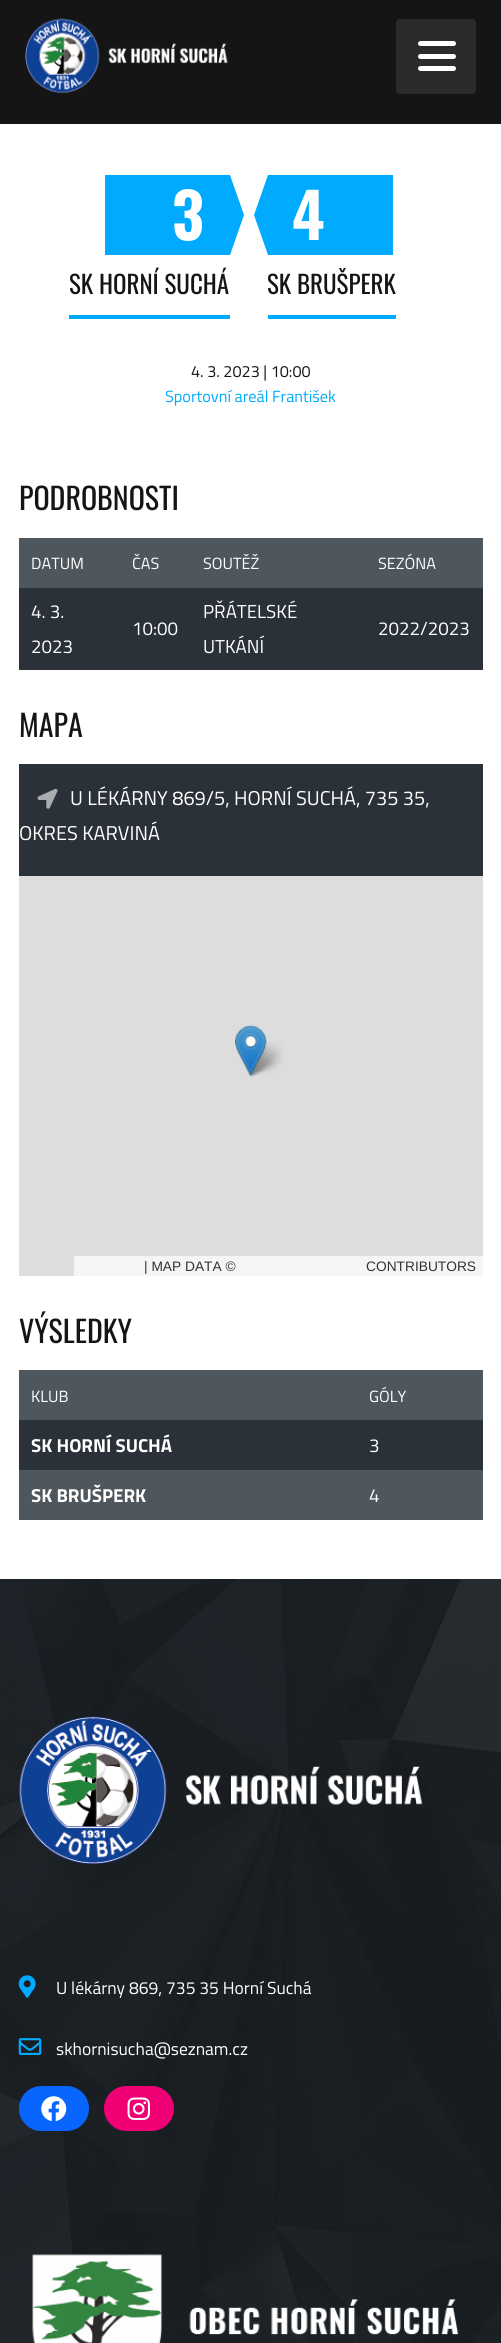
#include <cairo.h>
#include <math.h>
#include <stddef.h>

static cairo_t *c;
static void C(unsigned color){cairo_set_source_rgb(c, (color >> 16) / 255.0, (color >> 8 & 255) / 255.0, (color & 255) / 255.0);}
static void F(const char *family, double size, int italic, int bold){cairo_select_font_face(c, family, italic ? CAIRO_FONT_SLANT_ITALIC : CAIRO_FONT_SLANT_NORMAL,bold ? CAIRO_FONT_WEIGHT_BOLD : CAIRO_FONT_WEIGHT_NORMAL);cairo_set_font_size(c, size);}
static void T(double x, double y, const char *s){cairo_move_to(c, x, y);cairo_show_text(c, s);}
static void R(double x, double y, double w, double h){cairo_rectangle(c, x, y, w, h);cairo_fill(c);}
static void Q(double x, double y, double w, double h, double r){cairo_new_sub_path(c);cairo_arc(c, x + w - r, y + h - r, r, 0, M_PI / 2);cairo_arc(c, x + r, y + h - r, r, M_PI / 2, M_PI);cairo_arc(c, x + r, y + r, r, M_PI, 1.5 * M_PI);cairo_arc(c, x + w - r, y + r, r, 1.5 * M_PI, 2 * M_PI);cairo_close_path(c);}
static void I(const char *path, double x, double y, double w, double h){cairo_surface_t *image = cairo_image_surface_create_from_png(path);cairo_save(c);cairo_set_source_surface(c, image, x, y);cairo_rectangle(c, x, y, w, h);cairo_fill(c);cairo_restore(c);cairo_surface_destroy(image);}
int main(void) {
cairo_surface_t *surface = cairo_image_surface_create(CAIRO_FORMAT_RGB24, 501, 2343);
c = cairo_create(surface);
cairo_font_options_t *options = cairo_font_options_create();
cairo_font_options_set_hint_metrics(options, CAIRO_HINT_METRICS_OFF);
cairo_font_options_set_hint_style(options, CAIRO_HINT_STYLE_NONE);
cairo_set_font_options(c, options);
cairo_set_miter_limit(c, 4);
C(0xffffff);
cairo_paint(c);
C(0x151515);
R(0,0,501,124);
I("1.png",25,18,203,75);
C(0x2b2b2c);
Q(396,19,80,75,4);
cairo_fill(c);
C(0xffffff);
Q(418,41,38,5,2.5);
cairo_fill(c);
Q(418,54,38,5,2.5);
cairo_fill(c);
Q(418,66,38,5,2.5);
cairo_fill(c);
C(0x00aaff);
R(105,175,125,80);
F("Oswald",62,0,1);
C(0xffffff);
T(172,240,"3");
C(0x00aaff);
cairo_new_path(c);
cairo_move_to(c,230,255);
cairo_line_to(c,230,175);
cairo_line_to(c,244,215);
cairo_close_path(c);
cairo_fill(c);
R(69,315,161,4);
F("Oswald",25,0,0);
C(0x151515);
T(69,294,"SK HORNÍ SUCHÁ");
C(0x00aaff);
R(268,175,125,80);
cairo_new_path(c);
cairo_move_to(c,268,175);
cairo_line_to(c,268,255);
cairo_line_to(c,254,215);
cairo_close_path(c);
cairo_fill(c);
F("Oswald",62,0,1);
C(0xffffff);
T(292,240,"4");
C(0x00aaff);
R(268,315,128,4);
F("Oswald",25,0,0);
C(0x151515);
T(267,294,"SK BRUŠPERK");
F("Titillium Web",16.25,0,0);
T(191,377,"4. 3. 2023 | 10:00");
C(0x00aaff);
T(165,402,"Sportovní areál František");
F("Oswald",30,0,0);
C(0x151515);
T(19,510,"PODROBNOSTI");
C(0x4f575e);
R(19,538,464,50);
F("Titillium Web",16.25,0,0);
C(0xffffff);
T(31,569,"DATUM");
T(132,569,"ČAS");
T(203,569,"SOUTĚŽ");
T(378,569,"SEZÓNA");
C(0x2a3138);
R(19,588,464,82);
F("Titillium Web",18.75,0,0);
C(0xffffff);
T(31,618,"4. 3.");
T(31,653,"2023");
T(132,635,"10:00");
T(203,618,"PŘÁTELSKÉ");
T(203,653,"UTKÁNÍ");
T(378,635,"2022/2023");
F("Oswald",30,0,0);
C(0x151515);
T(19,737,"MAPA");
C(0x2a3138);
R(19,764,464,112);
I("2.png",37,788,21,21);
F("Titillium Web",20,0,0);
C(0xffffff);
T(70,805,"U LÉKÁRNY 869/5, HORNÍ SUCHÁ, 735 35,");
T(19,840,"OKRES KARVINÁ");
C(0xdddddd);
R(19,876,464,400);
I("4.png",246,1041,38,36);
I("3.png",235,1025,32,52);
C(0xf5f5f5);
R(74,1256,409,20);
F("Liberation Sans",13.75,0,0);
C(0x333333);
T(144,1271,"| MAP DATA ©");
T(366,1271,"CONTRIBUTORS");
F("Oswald",30,0,0);
C(0x151515);
T(19,1343,"VÝSLEDKY");
C(0x4f575e);
R(19,1370,464,50);
F("Titillium Web",16.25,0,0);
C(0xffffff);
T(31,1402,"KLUB");
T(369,1402,"GÓLY");
C(0x2a3138);
R(19,1420,464,50);
F("Titillium Web",18.75,0,1);
C(0xffffff);
T(31,1452,"SK HORNÍ SUCHÁ");
F("Titillium Web",18.75,0,0);
T(369,1452,"3");
C(0x4f575e);
R(19,1470,464,50);
F("Titillium Web",18.75,0,1);
C(0xffffff);
T(31,1502,"SK BRUŠPERK");
F("Titillium Web",18.75,0,0);
T(369,1502,"4");
I("5.png",0,1579,501,764);
I("6.png",18,1716,405,148);
I("7.png",18,1975,18,23);
F("Titillium Web",17.5,0,0);
T(56,1994,"U lékárny 869, 735 35 Horní Suchá");
I("8.png",18,2038,24,17);
T(56,2055,"skhornisucha@seznam.cz");
C(0x0866ff);
Q(19,2086,70,45,22.5);
cairo_fill(c);
I("9.png",41,2096,26,26);
C(0xf00075);
Q(104,2086,70,45,22.5);
cairo_fill(c);
I("10.png",127,2097,23,23);
I("11.png",31,2254,428,89);
cairo_surface_write_to_png(surface, "o.png");
cairo_font_options_destroy(options);
cairo_destroy(c);
cairo_surface_destroy(surface);
return 0;
}
